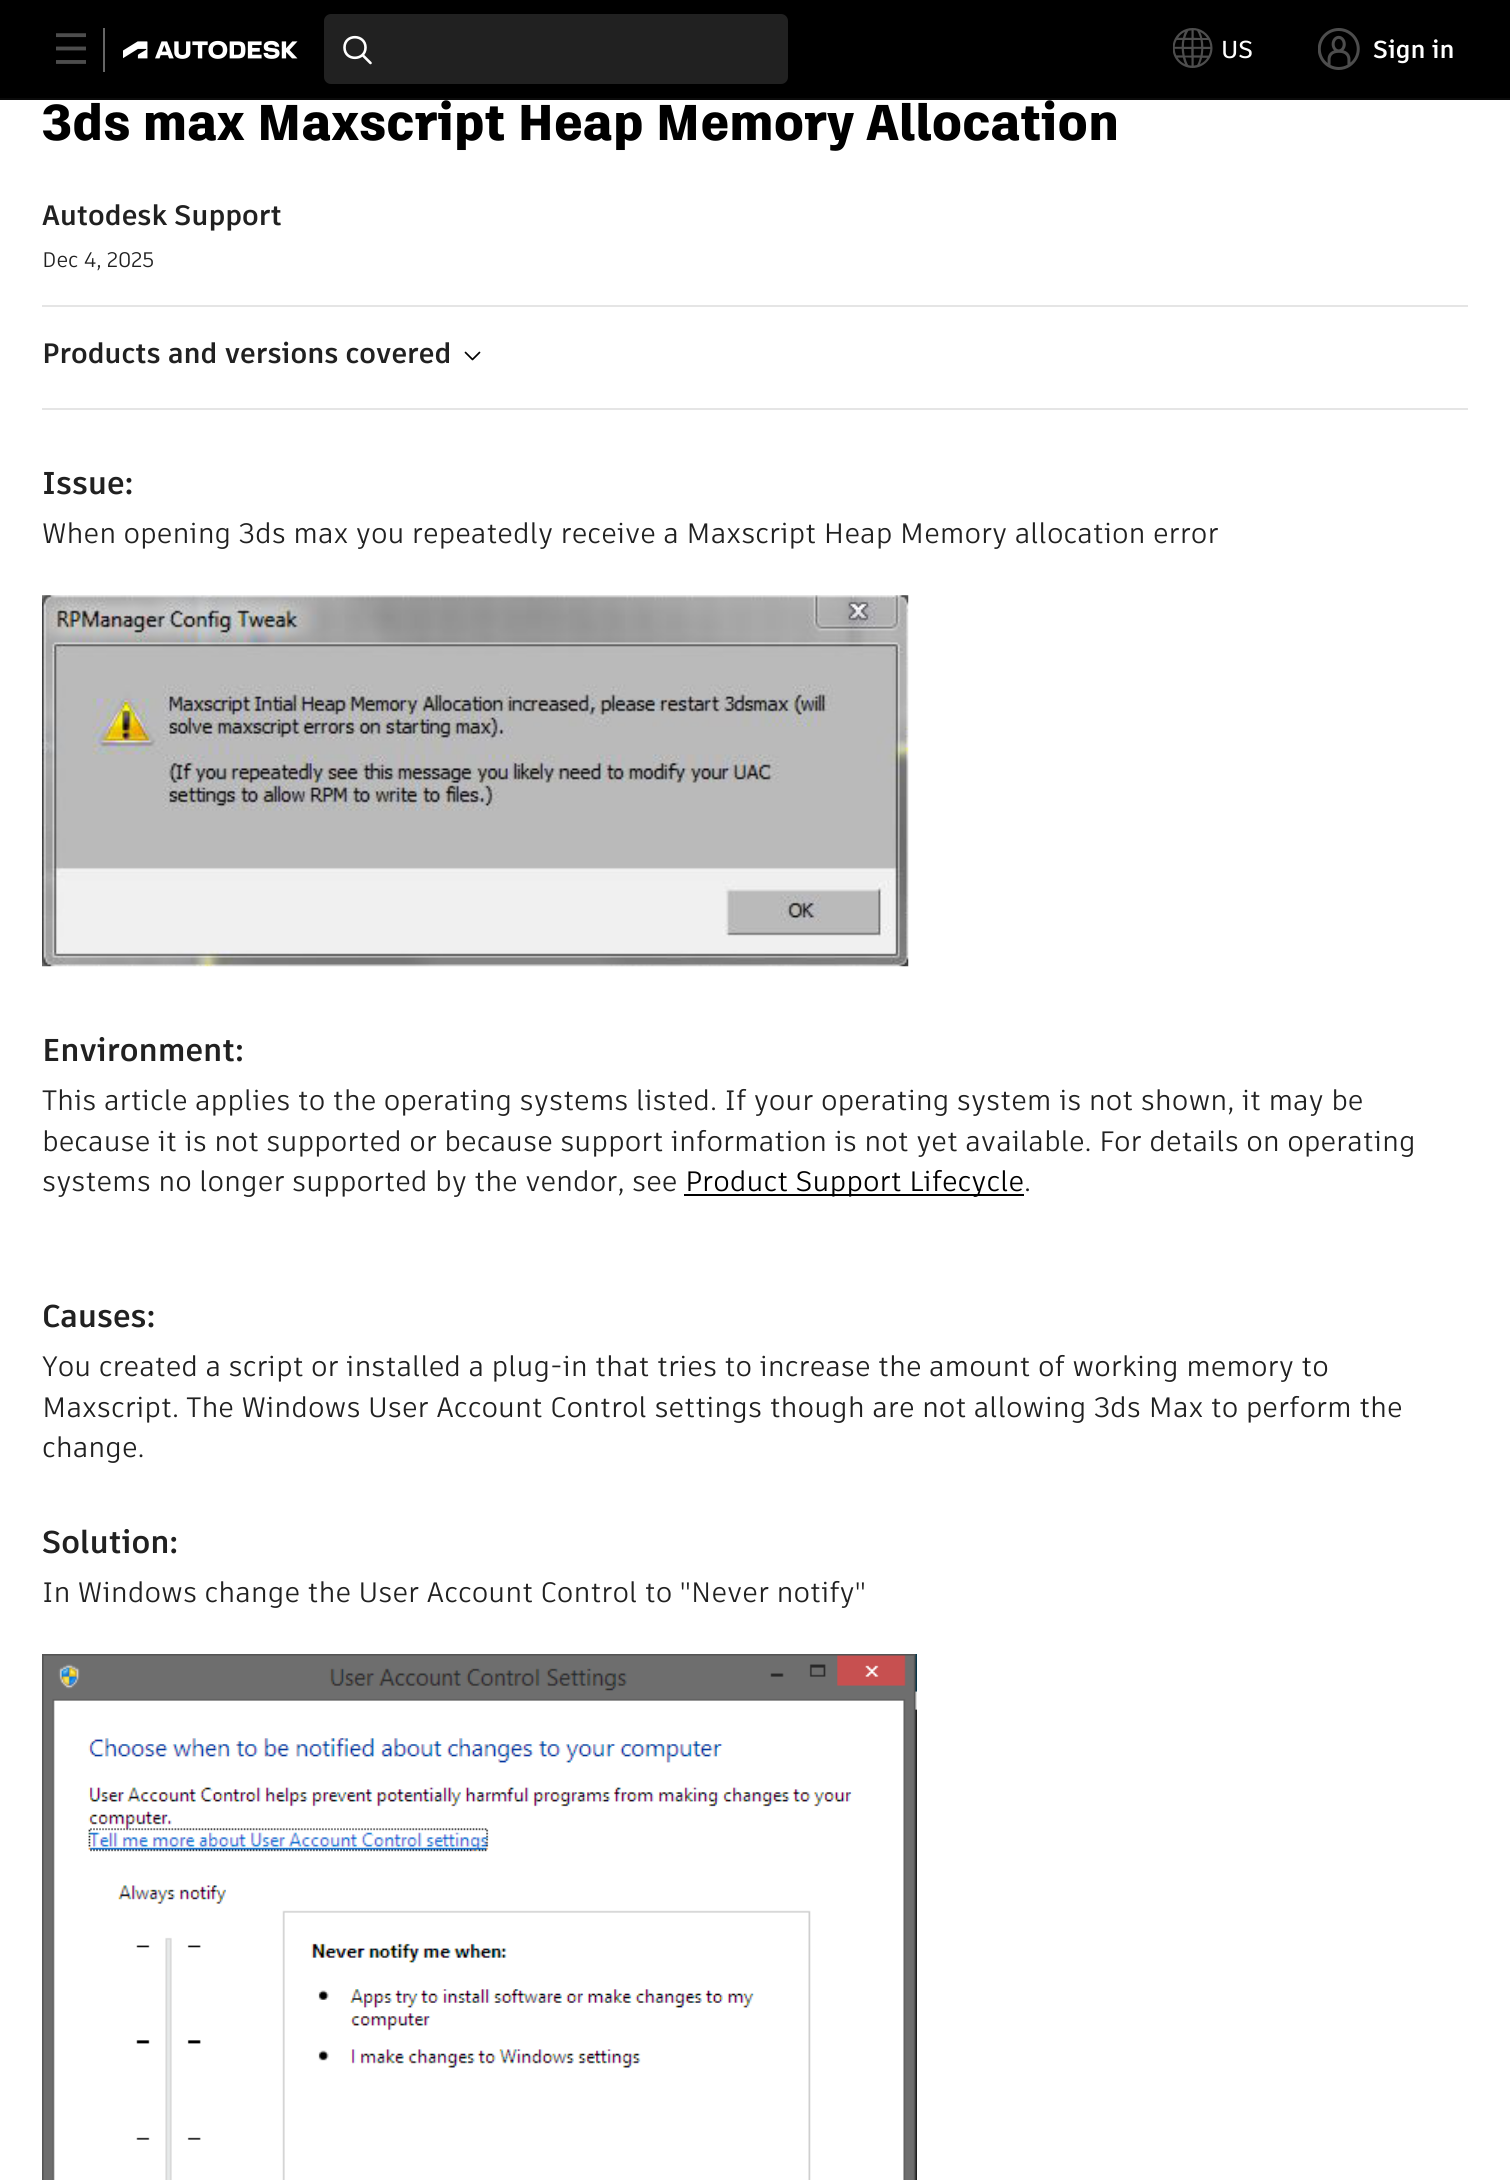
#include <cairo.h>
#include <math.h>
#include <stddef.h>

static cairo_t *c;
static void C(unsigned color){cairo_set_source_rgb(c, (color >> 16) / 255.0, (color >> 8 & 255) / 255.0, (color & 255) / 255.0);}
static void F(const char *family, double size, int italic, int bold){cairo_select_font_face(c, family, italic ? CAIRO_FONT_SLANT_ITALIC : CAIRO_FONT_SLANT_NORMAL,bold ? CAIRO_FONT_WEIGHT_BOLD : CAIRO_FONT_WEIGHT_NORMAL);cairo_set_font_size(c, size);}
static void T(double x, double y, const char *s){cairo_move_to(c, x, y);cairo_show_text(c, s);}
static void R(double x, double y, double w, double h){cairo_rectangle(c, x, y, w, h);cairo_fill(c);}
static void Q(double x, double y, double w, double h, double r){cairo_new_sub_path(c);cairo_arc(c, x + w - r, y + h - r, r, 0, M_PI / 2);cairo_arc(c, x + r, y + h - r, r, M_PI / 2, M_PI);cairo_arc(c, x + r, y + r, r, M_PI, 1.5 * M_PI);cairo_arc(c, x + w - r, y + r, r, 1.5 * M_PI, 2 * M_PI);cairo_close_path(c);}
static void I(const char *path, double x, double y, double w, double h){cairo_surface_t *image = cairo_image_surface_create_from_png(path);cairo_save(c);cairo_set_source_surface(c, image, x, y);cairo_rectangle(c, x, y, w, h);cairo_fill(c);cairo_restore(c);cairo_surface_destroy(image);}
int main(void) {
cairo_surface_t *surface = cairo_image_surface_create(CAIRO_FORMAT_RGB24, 1510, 2180);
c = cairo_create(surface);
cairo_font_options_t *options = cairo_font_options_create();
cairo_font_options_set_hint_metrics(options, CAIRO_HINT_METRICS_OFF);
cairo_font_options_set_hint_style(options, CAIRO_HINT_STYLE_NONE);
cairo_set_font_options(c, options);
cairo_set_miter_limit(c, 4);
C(0xffffff);
cairo_paint(c);
C(0x000000);
R(0,0,1510,98);
C(0x0a0a0a);
R(0,98,1510,2);
I("1.png",56,33,30,31);
C(0x666666);
R(103,28,2,44);
I("2.png",123,40,175,19);
C(0x212121);
Q(324,14,464,70,7);
cairo_fill(c);
cairo_new_path(c);
cairo_move_to(c,362.5,55);
cairo_line_to(c,370.5,63);
cairo_move_to(c,365.5,47.5);
cairo_curve_to(c,365.5,61,344.5,61.5,344.5,47.5);
cairo_curve_to(c,344.5,33.5,365.5,34,365.5,47.5);
cairo_close_path(c);
C(0xffffff);
cairo_set_line_width(c,2.6);
cairo_set_line_cap(c,CAIRO_LINE_CAP_ROUND);
cairo_stroke(c);
I("3.png",1173,28,40,40);
F("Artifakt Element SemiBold",24.5,0,0);
T(1221,58,"US");
I("4.png",1318,28,42,42);
F("Artifakt Element",24.5,0,1);
T(1373,58,"Sign in");
F("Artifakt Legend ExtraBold",50.1,0,0);
C(0x000000);
T(42,140,"3ds max Maxscript Heap Memory Allocation");
F("Artifakt Element",28,0,1);
C(0x212121);
T(42,225,"Autodesk Support");
F("Artifakt Element",21,0,0);
T(42,267,"Dec 4, 2025");
C(0xe5e5e5);
R(42,305,1426,2);
F("Artifakt Element",28,0,1);
C(0x212121);
T(42,363,"Products and versions covered");
cairo_new_path(c);
cairo_move_to(c,479.5,352.5);
cairo_line_to(c,472.5,359.5);
cairo_line_to(c,465.5,352.5);
C(0x000000);
cairo_set_line_width(c,1.7);
cairo_set_line_join(c,CAIRO_LINE_JOIN_ROUND);
cairo_stroke(c);
C(0xe5e5e5);
R(42,408,1426,2);
F("Artifakt Element",31.5,0,1);
C(0x212121);
T(42,494,"Issue:");
F("Artifakt Element",28,0,0);
T(42,543,"When opening 3ds max you repeatedly receive a Maxscript Heap Memory allocation error");
I("5.png",42,595,867,372);
F("Artifakt Element",31.5,0,1);
T(42,1061,"Environment:");
F("Artifakt Element",28,0,0);
T(42,1110,"This article applies to the operating systems listed. If your operating system is not shown, it may be");
T(42,1151,"because it is not supported or because support information is not yet available. For details on operating");
T(42,1191,"systems no longer supported by the vendor, see");
C(0x000000);
R(684,1194,340,2);
T(685,1191,"Product Support Lifecycle");
C(0x212121);
T(1024,1191,".");
F("Artifakt Element",31.5,0,1);
T(42,1327,"Causes:");
F("Artifakt Element",28,0,0);
T(42,1376,"You created a script or installed a plug-in that tries to increase the amount of working memory to");
T(42,1417,"Maxscript. The Windows User Account Control settings though are not allowing 3ds Max to perform the");
T(42,1457,"change.");
F("Artifakt Element",31.5,0,1);
T(42,1553,"Solution:");
F("Artifakt Element",28,0,0);
T(42,1602,"In Windows change the User Account Control to \"Never notify\"");
I("6.png",42,1654,875,526);
cairo_surface_write_to_png(surface, "o.png");
cairo_font_options_destroy(options);
cairo_destroy(c);
cairo_surface_destroy(surface);
return 0;
}
